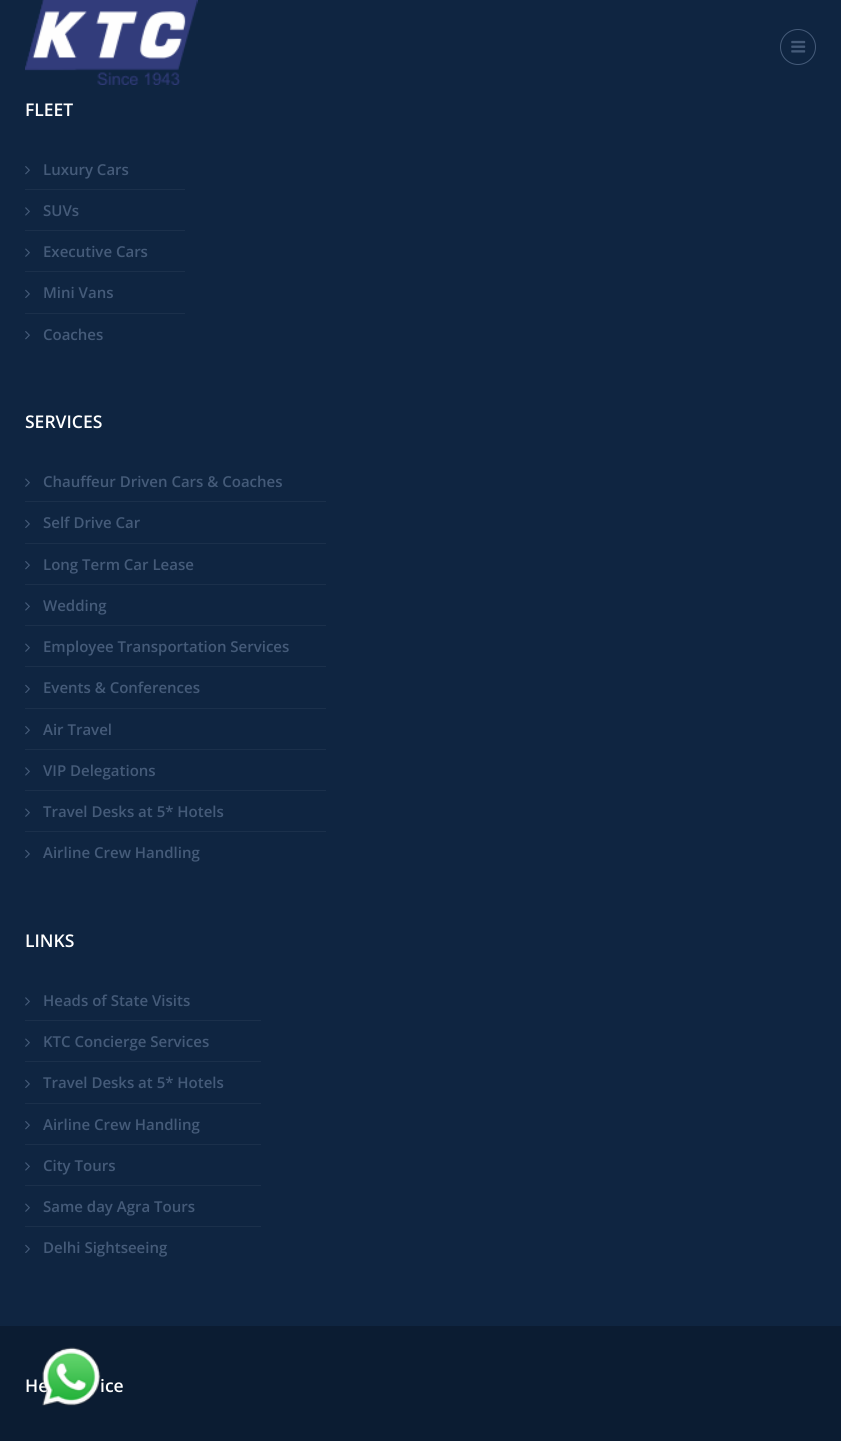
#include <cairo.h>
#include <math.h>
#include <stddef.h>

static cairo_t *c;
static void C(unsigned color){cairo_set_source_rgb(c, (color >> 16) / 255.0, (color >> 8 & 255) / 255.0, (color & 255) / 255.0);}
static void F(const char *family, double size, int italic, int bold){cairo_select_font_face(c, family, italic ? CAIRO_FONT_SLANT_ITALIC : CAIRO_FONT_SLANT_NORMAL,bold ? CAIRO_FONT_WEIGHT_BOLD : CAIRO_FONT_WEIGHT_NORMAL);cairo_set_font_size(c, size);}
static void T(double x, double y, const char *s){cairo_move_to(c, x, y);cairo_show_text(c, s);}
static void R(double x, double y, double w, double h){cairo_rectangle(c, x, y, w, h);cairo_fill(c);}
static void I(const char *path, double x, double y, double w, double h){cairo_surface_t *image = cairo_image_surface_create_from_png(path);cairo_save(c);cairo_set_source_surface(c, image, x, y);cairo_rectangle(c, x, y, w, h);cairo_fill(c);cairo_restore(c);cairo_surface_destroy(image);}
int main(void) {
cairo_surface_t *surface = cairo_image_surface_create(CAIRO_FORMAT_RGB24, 841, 1441);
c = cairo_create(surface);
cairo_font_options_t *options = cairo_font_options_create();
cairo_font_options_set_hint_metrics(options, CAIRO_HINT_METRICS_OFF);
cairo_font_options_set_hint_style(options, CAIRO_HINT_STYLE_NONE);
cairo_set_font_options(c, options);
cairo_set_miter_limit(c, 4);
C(0x0f2541);
cairo_paint(c);
I("1.png",25,0,173,85);
cairo_arc(c,798,47,17.5,0,2 * M_PI);
C(0x455b79);
cairo_set_line_width(c,1);
cairo_stroke(c);
I("2.png",791,40,15,13);
F("Open Sans SemiBold",17.5,0,0);
C(0xffffff);
T(25,116,"FLEET");
C(0x1b304b);
R(25,189,160,1);
I("3.png",25,166,5,9);
F("Open Sans SemiBold",15,0,0);
C(0x455b79);
T(43,175,"Luxury Cars");
C(0x1b304b);
R(25,230,160,1);
I("4.png",25,207,5,9);
C(0x455b79);
T(43,216,"SUVs");
C(0x1b304b);
R(25,271,160,1);
I("5.png",25,248,5,9);
C(0x455b79);
T(43,257,"Executive Cars");
C(0x1b304b);
R(25,313,160,1);
I("6.png",25,289,5,9);
C(0x455b79);
T(43,298,"Mini Vans");
I("3.png",25,331,5,9);
T(43,340,"Coaches");
F("Open Sans SemiBold",17.5,0,0);
C(0xffffff);
T(25,428,"SERVICES");
C(0x1b304b);
R(25,501,301,1);
I("5.png",25,478,5,9);
F("Open Sans SemiBold",15,0,0);
C(0x455b79);
T(43,487,"Chauffeur Driven Cars & Coaches");
C(0x1b304b);
R(25,543,301,1);
I("6.png",25,519,5,9);
C(0x455b79);
T(43,528,"Self Drive Car");
C(0x1b304b);
R(25,584,301,1);
I("3.png",25,561,5,9);
C(0x455b79);
T(43,570,"Long Term Car Lease");
C(0x1b304b);
R(25,625,301,1);
I("4.png",25,602,5,9);
C(0x455b79);
T(43,611,"Wedding");
C(0x1b304b);
R(25,666,301,1);
I("5.png",25,643,5,9);
C(0x455b79);
T(43,652,"Employee Transportation Services");
C(0x1b304b);
R(25,708,301,1);
I("6.png",25,684,5,9);
C(0x455b79);
T(43,693,"Events & Conferences");
C(0x1b304b);
R(25,749,301,1);
I("3.png",25,726,5,9);
C(0x455b79);
T(43,735,"Air Travel");
C(0x1b304b);
R(25,790,301,1);
I("4.png",25,767,5,9);
C(0x455b79);
T(43,776,"VIP Delegations");
C(0x1b304b);
R(25,831,301,1);
I("5.png",25,808,5,9);
C(0x455b79);
T(43,817,"Travel Desks at 5* Hotels");
I("6.png",25,849,5,9);
T(43,858,"Airline Crew Handling");
F("Open Sans SemiBold",17.5,0,0);
C(0xffffff);
T(25,947,"LINKS");
C(0x1b304b);
R(25,1020,236,1);
I("4.png",25,997,5,9);
F("Open Sans SemiBold",15,0,0);
C(0x455b79);
T(43,1006,"Heads of State Visits");
C(0x1b304b);
R(25,1061,236,1);
I("5.png",25,1038,5,9);
C(0x455b79);
T(43,1047,"KTC Concierge Services");
C(0x1b304b);
R(25,1103,236,1);
I("6.png",25,1079,5,9);
C(0x455b79);
T(43,1088,"Travel Desks at 5* Hotels");
C(0x1b304b);
R(25,1144,236,1);
I("3.png",25,1121,5,9);
C(0x455b79);
T(43,1130,"Airline Crew Handling");
C(0x1b304b);
R(25,1185,236,1);
I("4.png",25,1162,5,9);
C(0x455b79);
T(43,1171,"City Tours");
C(0x1b304b);
R(25,1226,236,1);
I("5.png",25,1203,5,9);
C(0x455b79);
T(43,1212,"Same day Agra Tours");
I("6.png",25,1244,5,9);
T(43,1253,"Delhi Sightseeing");
C(0x0b1c32);
R(0,1326,841,115);
F("Open Sans SemiBold",17.5,0,0);
C(0xffffff);
T(25,1392,"He");
T(100,1392,"ice");
I("7.png",42,1347,59,59);
cairo_surface_write_to_png(surface, "o.png");
cairo_font_options_destroy(options);
cairo_destroy(c);
cairo_surface_destroy(surface);
return 0;
}
